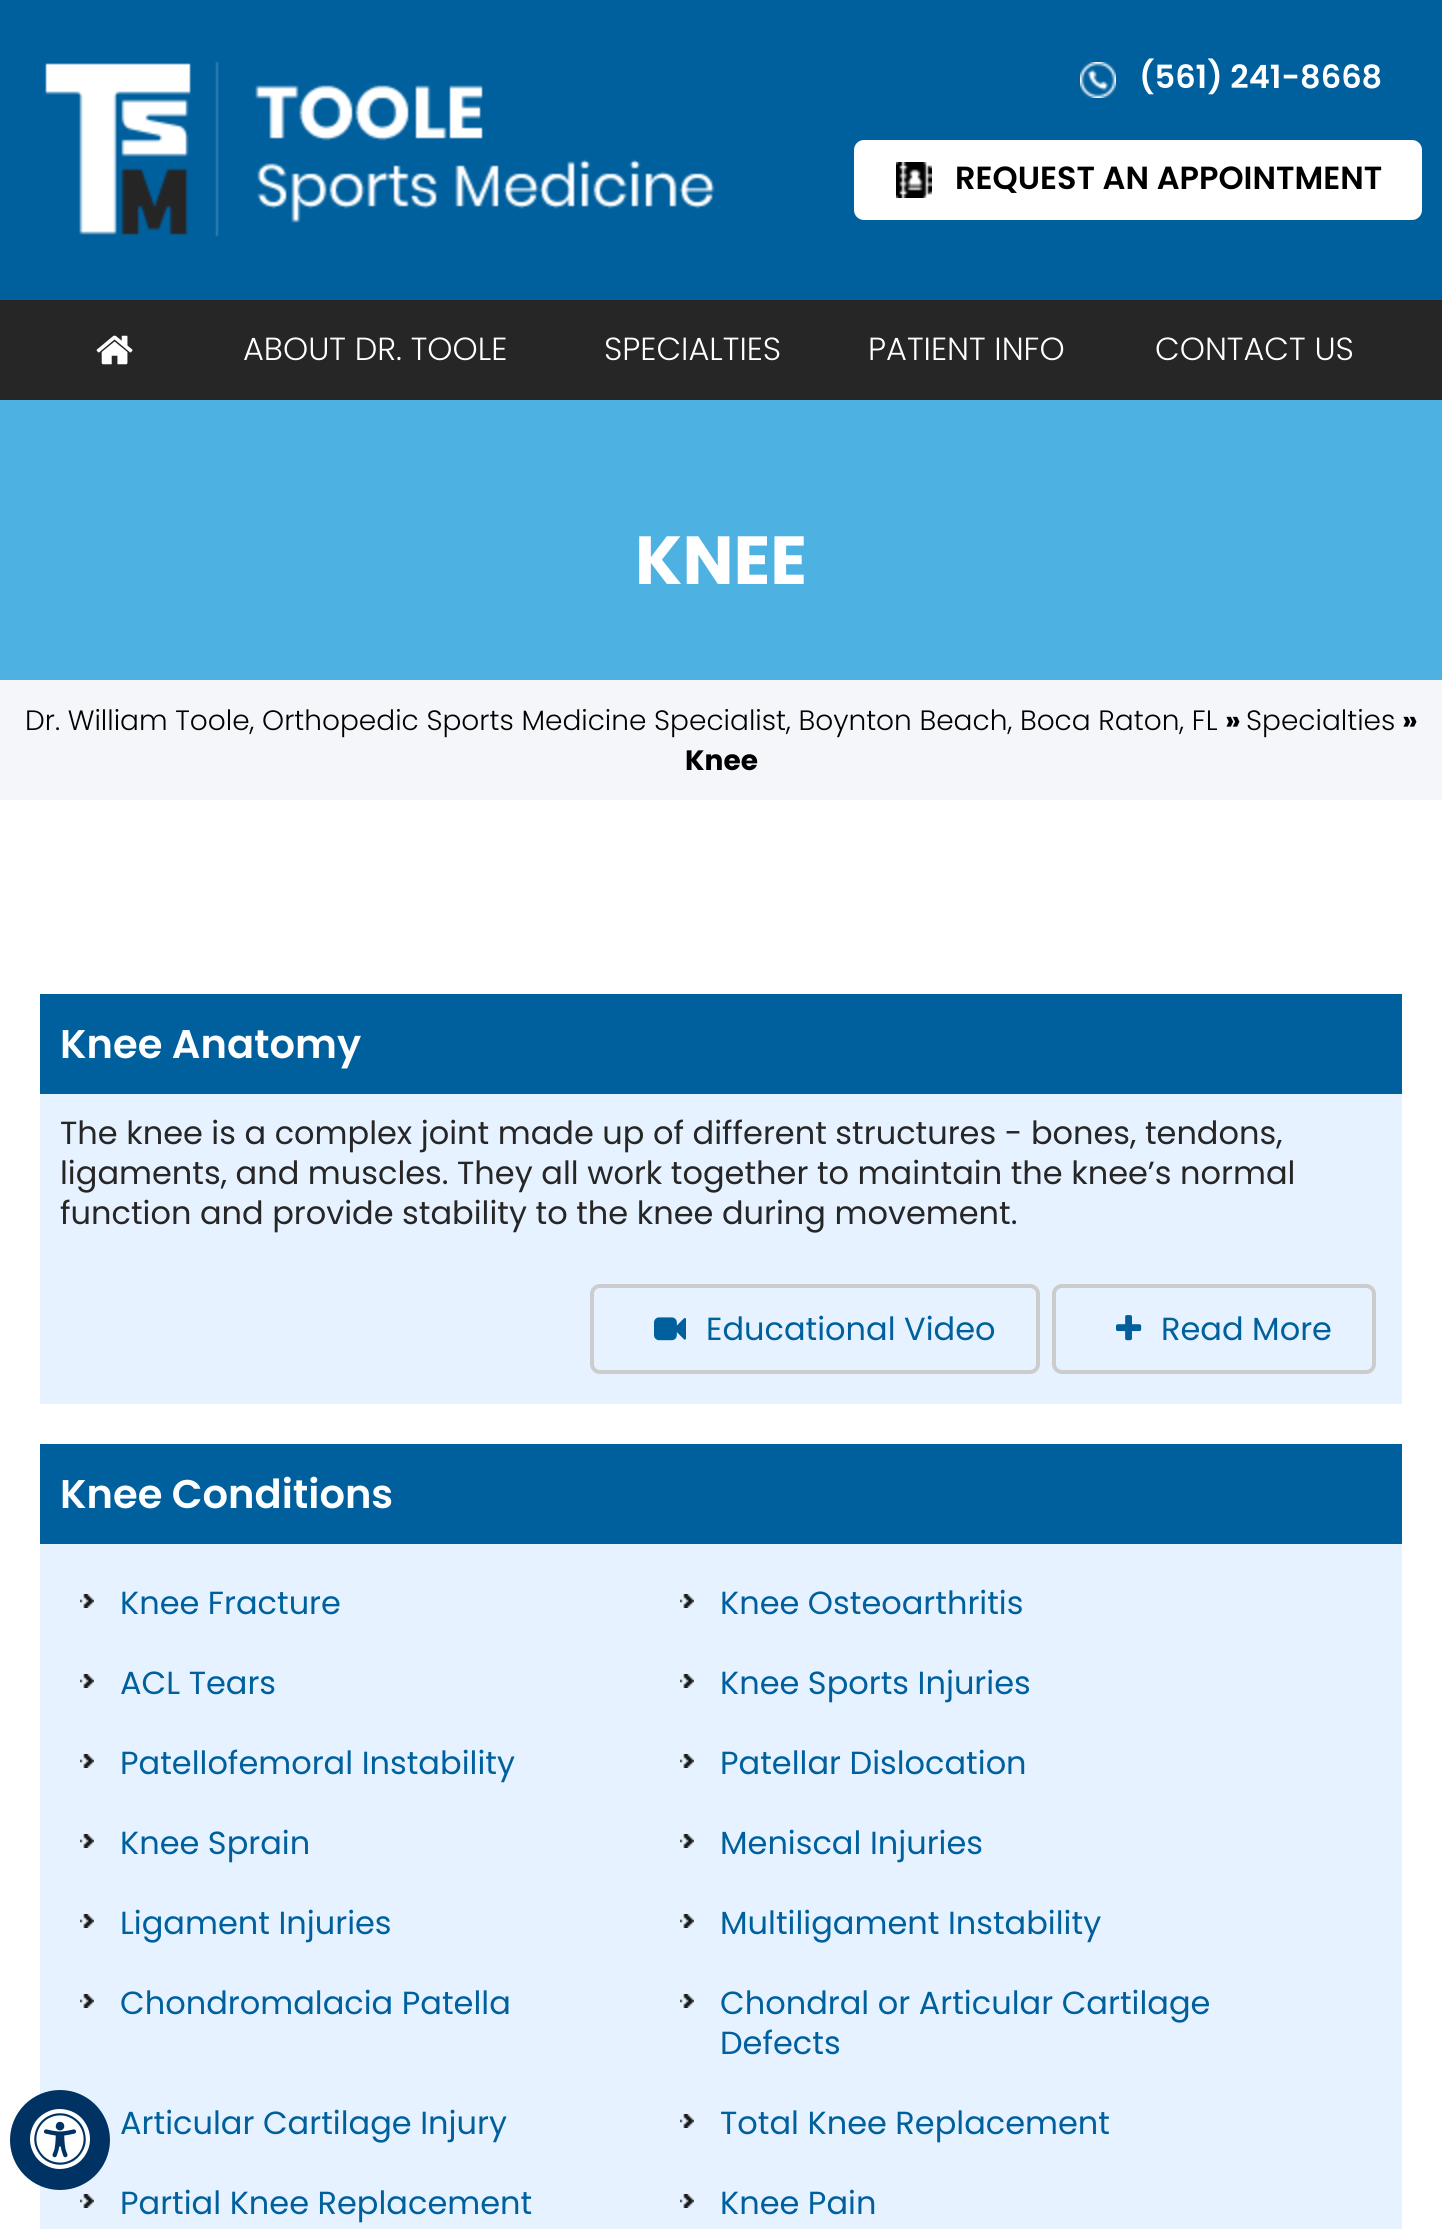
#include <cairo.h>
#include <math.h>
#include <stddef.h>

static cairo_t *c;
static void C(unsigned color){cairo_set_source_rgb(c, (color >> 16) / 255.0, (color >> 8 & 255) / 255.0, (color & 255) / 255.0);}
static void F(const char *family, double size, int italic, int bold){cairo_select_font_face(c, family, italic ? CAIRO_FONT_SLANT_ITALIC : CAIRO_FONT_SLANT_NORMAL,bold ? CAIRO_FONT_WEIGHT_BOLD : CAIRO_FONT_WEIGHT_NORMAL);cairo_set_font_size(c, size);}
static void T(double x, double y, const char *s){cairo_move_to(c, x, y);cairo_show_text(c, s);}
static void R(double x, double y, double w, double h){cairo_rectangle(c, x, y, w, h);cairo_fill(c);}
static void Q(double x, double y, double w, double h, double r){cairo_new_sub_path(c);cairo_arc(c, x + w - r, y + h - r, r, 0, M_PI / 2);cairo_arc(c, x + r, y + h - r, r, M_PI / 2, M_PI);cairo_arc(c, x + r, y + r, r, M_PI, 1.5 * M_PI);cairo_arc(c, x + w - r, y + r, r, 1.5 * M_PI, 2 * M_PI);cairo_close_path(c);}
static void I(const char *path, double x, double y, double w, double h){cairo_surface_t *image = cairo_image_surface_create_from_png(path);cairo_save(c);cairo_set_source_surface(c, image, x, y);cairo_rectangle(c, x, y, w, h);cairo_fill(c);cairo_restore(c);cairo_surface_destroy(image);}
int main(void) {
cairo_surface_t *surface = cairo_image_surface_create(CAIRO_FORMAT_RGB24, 1442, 2229);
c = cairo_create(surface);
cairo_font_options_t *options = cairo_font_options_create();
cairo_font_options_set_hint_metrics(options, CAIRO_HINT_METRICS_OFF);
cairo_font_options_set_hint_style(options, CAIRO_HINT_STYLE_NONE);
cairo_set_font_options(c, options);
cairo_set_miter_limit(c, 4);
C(0xffffff);
cairo_paint(c);
C(0x00609e);
R(0,0,1442,300);
I("1.png",45,61,670,176);
I("2.png",1080,62,36,36);
F("Poppins SemiBold",32,0,0);
C(0xffffff);
T(1139,88,"(561) 241-8668");
Q(854,140,568,80,10);
cairo_fill(c);
I("3.png",896,162,36,36);
C(0x000000);
T(955,189,"REQUEST AN APPOINTMENT");
C(0x262626);
R(0,300,1442,100);
I("4.png",96,335,37,30);
F("Poppins Light",32,0,0);
C(0xffffff);
T(243,360,"ABOUT DR. TOOLE");
T(604,360,"SPECIALTIES");
T(868,360,"PATIENT INFO");
T(1155,360,"CONTACT US");
C(0x4db1e2);
R(0,400,1442,280);
F("Poppins",68,0,1);
C(0xffffff);
T(635,584,"KNEE");
C(0xf4f6fa);
R(0,680,1442,120);
F("Poppins Light",28,0,0);
C(0x000000);
T(25,730,"Dr. William Toole, Orthopedic Sports Medicine Specialist, Boynton Beach, Boca Raton, FL");
F("Poppins",28,0,1);
T(1225,730,"»");
F("Poppins Light",28,0,0);
T(1246,730,"Specialties");
F("Poppins",28,0,1);
T(1402,730,"»");
T(685,770,"Knee");
C(0xe6f2ff);
R(40,1094,1362,310);
C(0x00609e);
R(40,994,1362,100);
F("Poppins SemiBold",40,0,0);
C(0xffffff);
T(60,1058,"Knee Anatomy");
F("Poppins",32,0,0);
C(0x262626);
T(60,1144,"The knee is a complex joint made up of different structures - bones, tendons,");
T(60,1184,"ligaments, and muscles. They all work together to maintain the knee’s normal");
T(60,1224,"function and provide stability to the knee during movement.");
Q(592,1286,446,86,8);
C(0xcccccc);
cairo_set_line_width(c,4);
cairo_stroke(c);
I("5.png",654,1317,32,24);
C(0x00609e);
T(706,1340,"Educational Video");
Q(1054,1286,320,86,8);
C(0xcccccc);
cairo_stroke(c);
I("6.png",1116,1315,26,26);
C(0x00609e);
T(1161,1340,"Read More");
C(0xe6f2ff);
R(40,1544,1362,685);
C(0x00609e);
R(40,1444,1362,100);
F("Poppins SemiBold",40,0,0);
C(0xffffff);
T(60,1508,"Knee Conditions");
I("7.png",80,1594,14,14);
F("Poppins",32,0,0);
C(0x00609e);
T(120,1614,"Knee Fracture");
I("7.png",680,1594,14,14);
T(720,1614,"Knee Osteoarthritis");
I("7.png",80,1674,14,14);
T(120,1694,"ACL Tears");
I("7.png",680,1674,14,14);
T(720,1694,"Knee Sports Injuries");
I("7.png",80,1754,14,14);
T(120,1774,"Patellofemoral Instability");
I("7.png",680,1754,14,14);
T(720,1774,"Patellar Dislocation");
I("7.png",80,1834,14,14);
T(120,1854,"Knee Sprain");
I("7.png",680,1834,14,14);
T(720,1854,"Meniscal Injuries");
I("7.png",80,1914,14,14);
T(120,1934,"Ligament Injuries");
I("7.png",680,1914,14,14);
T(720,1934,"Multiligament Instability");
I("7.png",80,1994,14,14);
T(120,2014,"Chondromalacia Patella");
I("7.png",680,1994,14,14);
T(720,2014,"Chondral or Articular Cartilage");
T(720,2054,"Defects");
T(120,2134,"Articular Cartilage Injury");
I("7.png",680,2114,14,14);
T(720,2134,"Total Knee Replacement");
I("7.png",80,2194,14,14);
T(120,2214,"Partial Knee Replacement");
I("7.png",680,2194,14,14);
T(720,2214,"Knee Pain");
C(0x003263);
cairo_new_path(c);
cairo_arc(c,60,2140,50,0,2 * M_PI);
cairo_fill(c);
I("8.png",30,2109,60,60);
cairo_surface_write_to_png(surface, "o.png");
cairo_font_options_destroy(options);
cairo_destroy(c);
cairo_surface_destroy(surface);
return 0;
}
